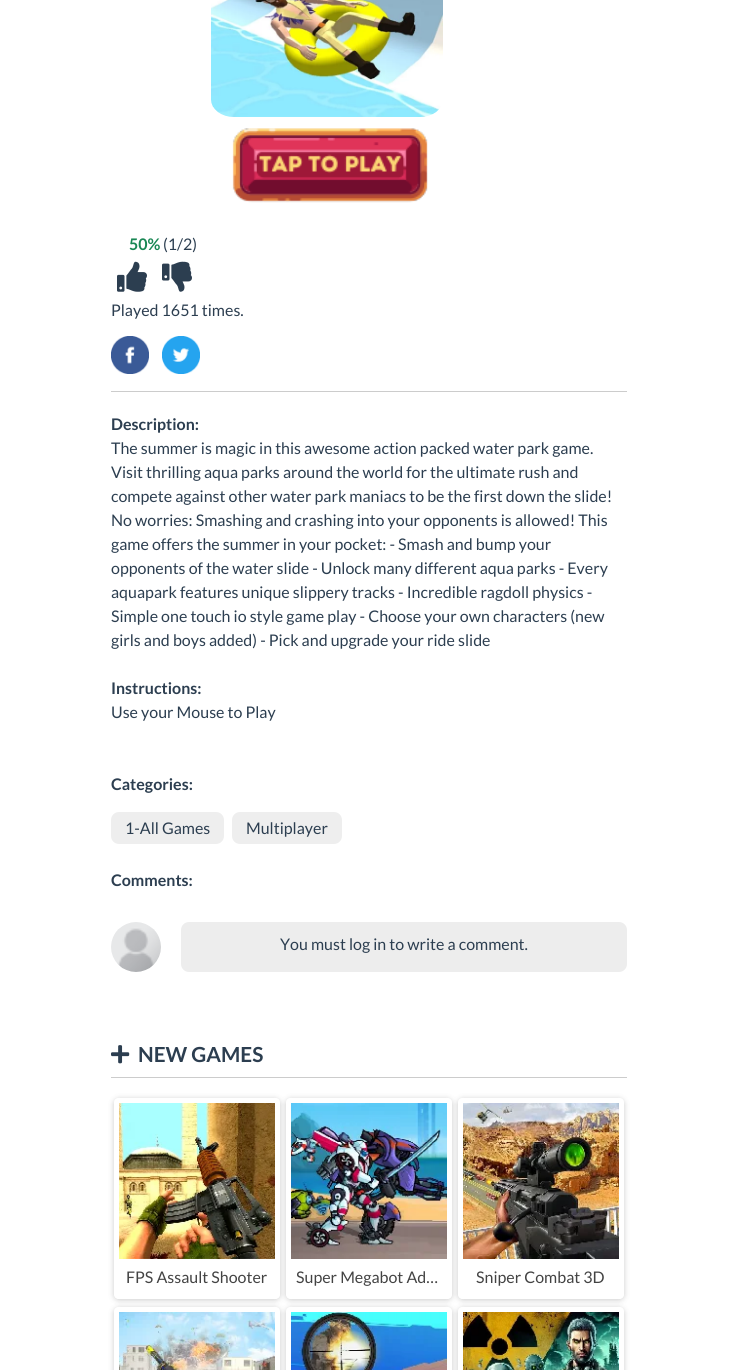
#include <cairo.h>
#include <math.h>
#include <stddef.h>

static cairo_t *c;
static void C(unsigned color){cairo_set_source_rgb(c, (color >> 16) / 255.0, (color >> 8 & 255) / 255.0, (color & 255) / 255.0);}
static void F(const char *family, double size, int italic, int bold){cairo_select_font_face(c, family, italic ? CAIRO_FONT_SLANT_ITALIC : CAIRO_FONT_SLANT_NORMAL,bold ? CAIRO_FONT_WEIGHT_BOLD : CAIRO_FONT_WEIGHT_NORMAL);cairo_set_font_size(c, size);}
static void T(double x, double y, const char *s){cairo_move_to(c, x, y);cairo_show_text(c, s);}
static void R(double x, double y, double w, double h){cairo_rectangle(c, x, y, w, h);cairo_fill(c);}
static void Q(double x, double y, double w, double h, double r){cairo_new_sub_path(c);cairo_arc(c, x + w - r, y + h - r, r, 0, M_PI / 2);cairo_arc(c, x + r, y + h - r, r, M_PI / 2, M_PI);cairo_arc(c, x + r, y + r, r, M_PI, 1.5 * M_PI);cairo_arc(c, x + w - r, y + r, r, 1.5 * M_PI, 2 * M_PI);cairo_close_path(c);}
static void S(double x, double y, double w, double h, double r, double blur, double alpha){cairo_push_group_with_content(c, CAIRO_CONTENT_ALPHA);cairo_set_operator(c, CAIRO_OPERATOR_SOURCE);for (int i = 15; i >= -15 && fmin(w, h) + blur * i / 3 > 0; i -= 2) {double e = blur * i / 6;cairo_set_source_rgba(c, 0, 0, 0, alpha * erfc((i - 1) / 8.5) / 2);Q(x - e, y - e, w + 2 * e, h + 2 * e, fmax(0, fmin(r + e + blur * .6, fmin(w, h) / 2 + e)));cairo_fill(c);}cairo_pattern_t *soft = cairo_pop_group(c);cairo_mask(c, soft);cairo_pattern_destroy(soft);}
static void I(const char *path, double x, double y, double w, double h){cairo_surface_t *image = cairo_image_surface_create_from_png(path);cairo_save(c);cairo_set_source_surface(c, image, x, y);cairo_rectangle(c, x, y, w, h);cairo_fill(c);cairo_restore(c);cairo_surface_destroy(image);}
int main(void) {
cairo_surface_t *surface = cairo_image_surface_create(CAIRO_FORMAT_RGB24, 737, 1370);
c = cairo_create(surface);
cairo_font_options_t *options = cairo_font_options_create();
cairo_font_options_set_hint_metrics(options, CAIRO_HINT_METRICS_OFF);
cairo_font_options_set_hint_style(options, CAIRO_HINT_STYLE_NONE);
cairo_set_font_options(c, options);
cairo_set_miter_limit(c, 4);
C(0xffffff);
cairo_paint(c);
I("1.png",211,0,232,117);
I("2.png",232,128,196,75);
C(0xcccccc);
R(111,391,516,1);
F("Lato",16,0,1);
C(0x198754);
T(129,250,"50%");
F("Lato",16,0,0);
C(0x2c3e50);
T(163,250,"(1/2)");
I("3.png",117,261,30,31);
I("4.png",162,261,30,31);
T(111,316,"Played 1651 times.");
I("5.png",111,336,38,38);
I("6.png",162,336,38,38);
F("Lato",16,0,1);
T(111,430,"Description:");
F("Lato",16,0,0);
T(111,454,"The summer is magic in this awesome action packed water park game.");
T(111,478,"Visit thrilling aqua parks around the world for the ultimate rush and");
T(111,502,"compete against other water park maniacs to be the first down the slide!");
T(111,526,"No worries: Smashing and crashing into your opponents is allowed! This");
T(111,550,"game offers the summer in your pocket: - Smash and bump your");
T(111,574,"opponents of the water slide - Unlock many different aqua parks - Every");
T(111,598,"aquapark features unique slippery tracks - Incredible ragdoll physics -");
T(111,622,"Simple one touch io style game play - Choose your own characters (new");
T(111,646,"girls and boys added) - Pick and upgrade your ride slide");
F("Lato",16,0,1);
T(111,694,"Instructions:");
F("Lato",16,0,0);
T(111,718,"Use your Mouse to Play");
F("Lato",16,0,1);
T(111,790,"Categories:");
C(0xeeeeee);
Q(111,812,113,32,8);
cairo_fill(c);
F("Lato",16,0,0);
C(0x2c3e50);
T(125,834,"1-All Games");
C(0xeeeeee);
Q(232,812,110,32,8);
cairo_fill(c);
C(0x2c3e50);
T(246,834,"Multiplayer");
F("Lato",16,0,1);
T(111,886,"Comments:");
I("7.png",111,922,50,50);
C(0xededed);
Q(181,922,446,50,8);
cairo_fill(c);
F("Lato",16,0,0);
C(0x2c3e50);
T(280,950,"You must log in to write a comment.");
C(0xcccccc);
R(111,1077,516,1);
I("8.png",111,1045,19,19);
F("Lato",20.75,0,1);
C(0x2c3e50);
T(138,1062,"NEW GAMES");
cairo_save(c);
cairo_set_fill_rule(c,CAIRO_FILL_RULE_EVEN_ODD);
cairo_new_path(c);
cairo_move_to(c,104,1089);
cairo_line_to(c,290,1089);
cairo_line_to(c,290,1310);
cairo_line_to(c,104,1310);
cairo_close_path(c);
cairo_move_to(c,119,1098);
cairo_line_to(c,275,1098);
cairo_curve_to(c,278,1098,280,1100,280,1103);
cairo_line_to(c,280,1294);
cairo_curve_to(c,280,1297,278,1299,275,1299);
cairo_line_to(c,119,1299);
cairo_curve_to(c,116,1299,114,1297,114,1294);
cairo_line_to(c,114,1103);
cairo_curve_to(c,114,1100,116,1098,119,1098);
cairo_close_path(c);
cairo_clip(c);
C(0x323232);
S(114,1099,166,201,5,3,.25);
cairo_restore(c);
I("9.png",119,1103,156,156);
F("Lato",16,0,0);
C(0x434343);
T(126,1283,"FPS Assault Shooter");
cairo_save(c);
cairo_set_fill_rule(c,CAIRO_FILL_RULE_EVEN_ODD);
cairo_new_path(c);
cairo_move_to(c,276,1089);
cairo_line_to(c,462,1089);
cairo_line_to(c,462,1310);
cairo_line_to(c,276,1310);
cairo_close_path(c);
cairo_move_to(c,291,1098);
cairo_line_to(c,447,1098);
cairo_curve_to(c,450,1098,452,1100,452,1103);
cairo_line_to(c,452,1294);
cairo_curve_to(c,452,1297,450,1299,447,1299);
cairo_line_to(c,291,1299);
cairo_curve_to(c,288,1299,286,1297,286,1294);
cairo_line_to(c,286,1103);
cairo_curve_to(c,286,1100,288,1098,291,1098);
cairo_close_path(c);
cairo_clip(c);
C(0x323232);
S(286,1099,166,201,5,3,.25);
cairo_restore(c);
I("10.png",291,1103,156,156);
T(296,1283,"Super Megabot Ad…");
cairo_save(c);
cairo_set_fill_rule(c,CAIRO_FILL_RULE_EVEN_ODD);
cairo_new_path(c);
cairo_move_to(c,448,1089);
cairo_line_to(c,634,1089);
cairo_line_to(c,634,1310);
cairo_line_to(c,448,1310);
cairo_close_path(c);
cairo_move_to(c,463,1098);
cairo_line_to(c,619,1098);
cairo_curve_to(c,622,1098,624,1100,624,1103);
cairo_line_to(c,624,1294);
cairo_curve_to(c,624,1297,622,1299,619,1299);
cairo_line_to(c,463,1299);
cairo_curve_to(c,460,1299,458,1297,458,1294);
cairo_line_to(c,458,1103);
cairo_curve_to(c,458,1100,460,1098,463,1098);
cairo_close_path(c);
cairo_clip(c);
C(0x323232);
S(458,1099,166,201,5,3,.25);
cairo_restore(c);
I("11.png",463,1103,156,156);
T(476,1283,"Sniper Combat 3D");
cairo_save(c);
cairo_set_fill_rule(c,CAIRO_FILL_RULE_EVEN_ODD);
cairo_new_path(c);
cairo_move_to(c,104,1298);
cairo_line_to(c,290,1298);
cairo_line_to(c,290,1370);
cairo_line_to(c,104,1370);
cairo_close_path(c);
cairo_move_to(c,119,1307);
cairo_line_to(c,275,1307);
cairo_curve_to(c,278,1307,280,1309,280,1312);
cairo_line_to(c,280,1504);
cairo_curve_to(c,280,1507,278,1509,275,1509);
cairo_line_to(c,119,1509);
cairo_curve_to(c,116,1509,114,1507,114,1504);
cairo_line_to(c,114,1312);
cairo_curve_to(c,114,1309,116,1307,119,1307);
cairo_close_path(c);
cairo_clip(c);
C(0x323232);
S(114,1308,166,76,5,3,.25);
cairo_restore(c);
I("12.png",119,1312,156,58);
cairo_save(c);
cairo_set_fill_rule(c,CAIRO_FILL_RULE_EVEN_ODD);
cairo_new_path(c);
cairo_move_to(c,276,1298);
cairo_line_to(c,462,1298);
cairo_line_to(c,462,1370);
cairo_line_to(c,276,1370);
cairo_close_path(c);
cairo_move_to(c,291,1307);
cairo_line_to(c,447,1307);
cairo_curve_to(c,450,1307,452,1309,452,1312);
cairo_line_to(c,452,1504);
cairo_curve_to(c,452,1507,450,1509,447,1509);
cairo_line_to(c,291,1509);
cairo_curve_to(c,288,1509,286,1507,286,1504);
cairo_line_to(c,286,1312);
cairo_curve_to(c,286,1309,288,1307,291,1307);
cairo_close_path(c);
cairo_clip(c);
C(0x323232);
S(286,1308,166,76,5,3,.25);
cairo_restore(c);
I("13.png",291,1312,156,58);
cairo_save(c);
cairo_set_fill_rule(c,CAIRO_FILL_RULE_EVEN_ODD);
cairo_new_path(c);
cairo_move_to(c,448,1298);
cairo_line_to(c,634,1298);
cairo_line_to(c,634,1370);
cairo_line_to(c,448,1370);
cairo_close_path(c);
cairo_move_to(c,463,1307);
cairo_line_to(c,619,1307);
cairo_curve_to(c,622,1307,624,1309,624,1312);
cairo_line_to(c,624,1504);
cairo_curve_to(c,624,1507,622,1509,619,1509);
cairo_line_to(c,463,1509);
cairo_curve_to(c,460,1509,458,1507,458,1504);
cairo_line_to(c,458,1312);
cairo_curve_to(c,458,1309,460,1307,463,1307);
cairo_close_path(c);
cairo_clip(c);
C(0x323232);
S(458,1308,166,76,5,3,.25);
cairo_restore(c);
I("14.png",463,1312,156,58);
cairo_surface_write_to_png(surface, "o.png");
cairo_font_options_destroy(options);
cairo_destroy(c);
cairo_surface_destroy(surface);
return 0;
}
